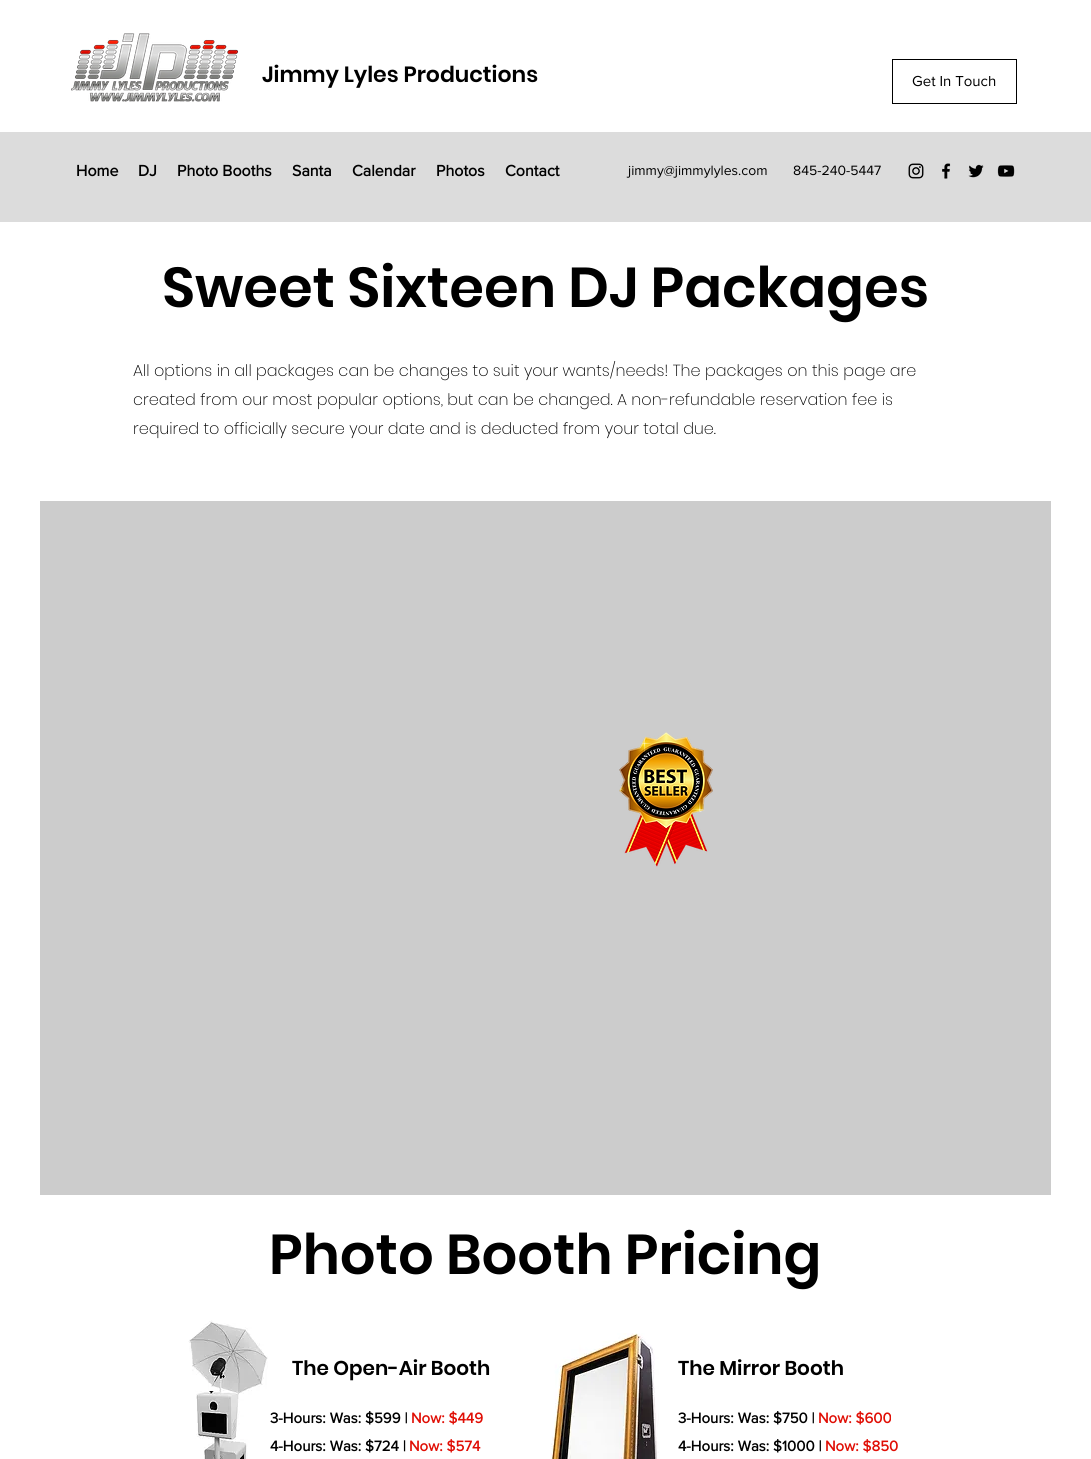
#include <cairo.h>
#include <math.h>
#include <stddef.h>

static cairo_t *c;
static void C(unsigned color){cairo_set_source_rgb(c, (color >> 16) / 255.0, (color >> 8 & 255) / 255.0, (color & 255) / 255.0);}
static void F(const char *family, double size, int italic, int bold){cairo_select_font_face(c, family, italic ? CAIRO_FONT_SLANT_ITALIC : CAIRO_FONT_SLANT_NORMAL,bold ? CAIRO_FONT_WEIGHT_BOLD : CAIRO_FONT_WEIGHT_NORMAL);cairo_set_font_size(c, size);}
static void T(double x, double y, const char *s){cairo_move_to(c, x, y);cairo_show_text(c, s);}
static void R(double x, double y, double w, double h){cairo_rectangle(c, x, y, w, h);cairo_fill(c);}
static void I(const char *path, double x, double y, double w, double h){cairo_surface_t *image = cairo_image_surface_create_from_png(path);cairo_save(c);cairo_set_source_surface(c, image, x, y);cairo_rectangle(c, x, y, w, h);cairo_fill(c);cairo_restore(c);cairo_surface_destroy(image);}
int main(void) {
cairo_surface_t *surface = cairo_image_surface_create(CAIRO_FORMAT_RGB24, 1091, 1459);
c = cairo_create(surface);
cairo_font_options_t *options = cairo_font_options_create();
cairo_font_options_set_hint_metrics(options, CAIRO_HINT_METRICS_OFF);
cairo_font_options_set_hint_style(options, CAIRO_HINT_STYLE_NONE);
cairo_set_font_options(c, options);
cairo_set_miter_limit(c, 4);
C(0xffffff);
cairo_paint(c);
I("1.png",71,33,168,69);
F("Poppins SemiBold",22,0,0);
C(0x000000);
T(262,82,"Jimmy Lyles Productions");
cairo_rectangle(c,892.5,59.5,124,44);
cairo_set_line_width(c,1);
cairo_stroke(c);
F("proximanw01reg",15,0,0);
T(912,86,"Get In Touch");
C(0xdcdcdc);
R(0,132,1091,90);
F("proximanw01reg",16,0,1);
C(0x000000);
T(76,176,"Home");
T(138,176,"DJ");
T(177,176,"Photo Booths");
T(292,176,"Santa");
T(352,176,"Calendar");
T(436,176,"Photos");
T(505,176,"Contact");
F("proximanw01reg",14,0,0);
T(628,175,"jimmy@jimmylyles.com");
T(793,175,"845-240-5447");
I("2.png",908,163,16,16);
I("3.png",942,163,9,16);
I("4.png",968,164,16,14);
I("5.png",997,165,18,12);
F("Poppins SemiBold",56,0,0);
T(162,307,"Sweet Sixteen DJ Packages");
F("Poppins ExtraLight",16,0,0);
T(133,376,"All options in all packages can be changes to suit your wants/needs! The packages on this page are");
T(133,405,"created from our most popular options, but can be changed. A non-refundable reservation fee is");
T(133,434,"required to officially secure your date and is deducted from your total due.");
C(0xcccccc);
R(40,501,1011,694);
I("6.png",619,732,94,135);
F("Poppins SemiBold",56,0,0);
C(0x000000);
T(269,1274,"Photo Booth Pricing");
I("7.png",188,1320,80,139);
F("Poppins SemiBold",20,0,0);
T(292,1375,"The Open-Air Booth");
I("8.png",550,1333,109,126);
T(678,1375,"The Mirror Booth");
F("proximanw01reg",15,0,1);
T(270,1423,"3-Hours: Was: $599 |");
C(0xe00e05);
T(411,1423,"Now: $449");
C(0x000000);
T(270,1451,"4-Hours: Was: $724 |");
C(0xe00e05);
T(409,1451,"Now: $574");
C(0x000000);
T(678,1423,"3-Hours: Was: $750 |");
C(0xe00e05);
T(818,1423,"Now: $600");
C(0x000000);
T(678,1451,"4-Hours: Was: $1000 |");
C(0xe00e05);
T(825,1451,"Now: $850");
cairo_surface_write_to_png(surface, "o.png");
cairo_font_options_destroy(options);
cairo_destroy(c);
cairo_surface_destroy(surface);
return 0;
}
